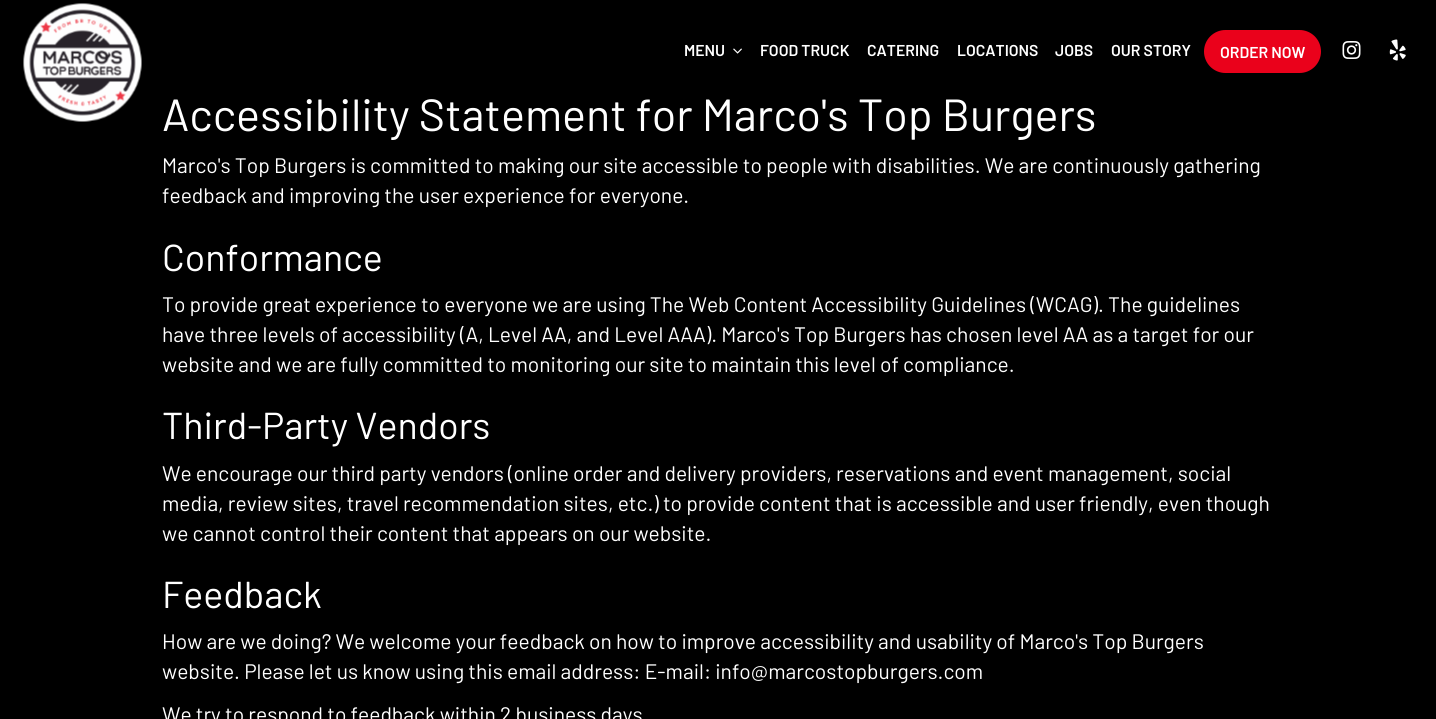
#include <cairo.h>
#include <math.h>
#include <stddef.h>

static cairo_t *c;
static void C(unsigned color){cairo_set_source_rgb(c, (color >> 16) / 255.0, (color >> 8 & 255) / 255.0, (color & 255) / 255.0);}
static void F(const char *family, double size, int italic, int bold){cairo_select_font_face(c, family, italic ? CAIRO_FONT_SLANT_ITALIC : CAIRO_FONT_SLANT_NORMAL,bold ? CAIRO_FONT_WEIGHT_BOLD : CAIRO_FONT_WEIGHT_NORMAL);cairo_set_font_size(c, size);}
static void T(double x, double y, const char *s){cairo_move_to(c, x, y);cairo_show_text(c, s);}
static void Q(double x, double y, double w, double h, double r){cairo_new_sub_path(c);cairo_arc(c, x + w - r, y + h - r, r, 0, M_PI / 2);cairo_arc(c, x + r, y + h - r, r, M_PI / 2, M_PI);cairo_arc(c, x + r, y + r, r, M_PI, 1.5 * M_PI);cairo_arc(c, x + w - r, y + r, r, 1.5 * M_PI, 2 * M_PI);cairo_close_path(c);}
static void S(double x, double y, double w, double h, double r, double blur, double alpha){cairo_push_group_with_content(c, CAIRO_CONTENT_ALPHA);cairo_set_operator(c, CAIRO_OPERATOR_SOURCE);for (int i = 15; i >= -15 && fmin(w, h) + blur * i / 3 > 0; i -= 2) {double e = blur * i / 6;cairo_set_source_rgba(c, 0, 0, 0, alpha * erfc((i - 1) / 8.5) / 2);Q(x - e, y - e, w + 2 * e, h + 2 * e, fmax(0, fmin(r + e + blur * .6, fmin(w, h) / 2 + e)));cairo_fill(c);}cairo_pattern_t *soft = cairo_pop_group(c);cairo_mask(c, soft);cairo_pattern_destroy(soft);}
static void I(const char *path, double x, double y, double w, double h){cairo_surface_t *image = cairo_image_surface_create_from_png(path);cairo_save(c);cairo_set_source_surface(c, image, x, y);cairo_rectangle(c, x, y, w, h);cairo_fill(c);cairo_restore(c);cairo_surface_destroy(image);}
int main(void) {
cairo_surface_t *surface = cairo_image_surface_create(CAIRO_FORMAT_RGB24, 1436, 719);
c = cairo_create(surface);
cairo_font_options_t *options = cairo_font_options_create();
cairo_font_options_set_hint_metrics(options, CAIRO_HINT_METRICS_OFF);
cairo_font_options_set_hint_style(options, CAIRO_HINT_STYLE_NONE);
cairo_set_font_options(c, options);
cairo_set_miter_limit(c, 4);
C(0x000000);
cairo_paint(c);
cairo_save(c);
cairo_set_fill_rule(c,CAIRO_FILL_RULE_EVEN_ODD);
cairo_new_path(c);
cairo_move_to(c,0,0);
cairo_line_to(c,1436,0);
cairo_line_to(c,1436,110);
cairo_line_to(c,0,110);
cairo_close_path(c);
cairo_move_to(c,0,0);
cairo_line_to(c,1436,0);
cairo_line_to(c,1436,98);
cairo_line_to(c,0,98);
cairo_close_path(c);
cairo_clip(c);
S(0,3,1436,97,0,3,.4);
cairo_restore(c);
I("1.png",23,3,119,119);
F("Barlow SemiBold",15.75,0,0);
C(0xffffff);
T(684,56,"MENU");
I("2.png",733,48,9,6);
T(760,56,"FOOD TRUCK");
T(867,56,"CATERING");
T(957,56,"LOCATIONS");
T(1055,56,"JOBS");
T(1111,56,"OUR STORY");
C(0xea011b);
Q(1205.5,31.5,114,40,20);
cairo_fill_preserve(c);
cairo_set_line_width(c,3);
cairo_stroke(c);
C(0xffffff);
T(1220,58,"ORDER NOW");
I("3.png",1342,41,19,18);
I("4.png",1389,39,17,22);
F("Barlow",45,0,0);
T(162,131,"Accessibility Statement for Marco's Top Burgers");
F("Barlow",21,0,0);
T(162,173,"Marco's Top Burgers is committed to making our site accessible to people with disabilities. We are continuously gathering");
T(162,203,"feedback and improving the user experience for everyone.");
F("Barlow",37.5,0,0);
T(162,271,"Conformance");
F("Barlow",21,0,0);
T(162,312,"To provide great experience to everyone we are using The Web Content Accessibility Guidelines (WCAG). The guidelines");
T(162,342,"have three levels of accessibility (A, Level AA, and Level AAA). Marco's Top Burgers has chosen level AA as a target for our");
T(162,372,"website and we are fully committed to monitoring our site to maintain this level of compliance.");
F("Barlow",37.5,0,0);
T(162,439,"Third-Party Vendors");
F("Barlow",21,0,0);
T(162,481,"We encourage our third party vendors (online order and delivery providers, reservations and event management, social");
T(162,511,"media, review sites, travel recommendation sites, etc.) to provide content that is accessible and user friendly, even though");
T(162,541,"we cannot control their content that appears on our website.");
F("Barlow",37.5,0,0);
T(162,608,"Feedback");
F("Barlow",21,0,0);
T(162,649,"How are we doing? We welcome your feedback on how to improve accessibility and usability of Marco's Top Burgers");
T(162,679,"website. Please let us know using this email address: E-mail: info@marcostopburgers.com");
T(162,722,"We try to respond to feedback within 2 business days");
cairo_surface_write_to_png(surface, "o.png");
cairo_font_options_destroy(options);
cairo_destroy(c);
cairo_surface_destroy(surface);
return 0;
}
